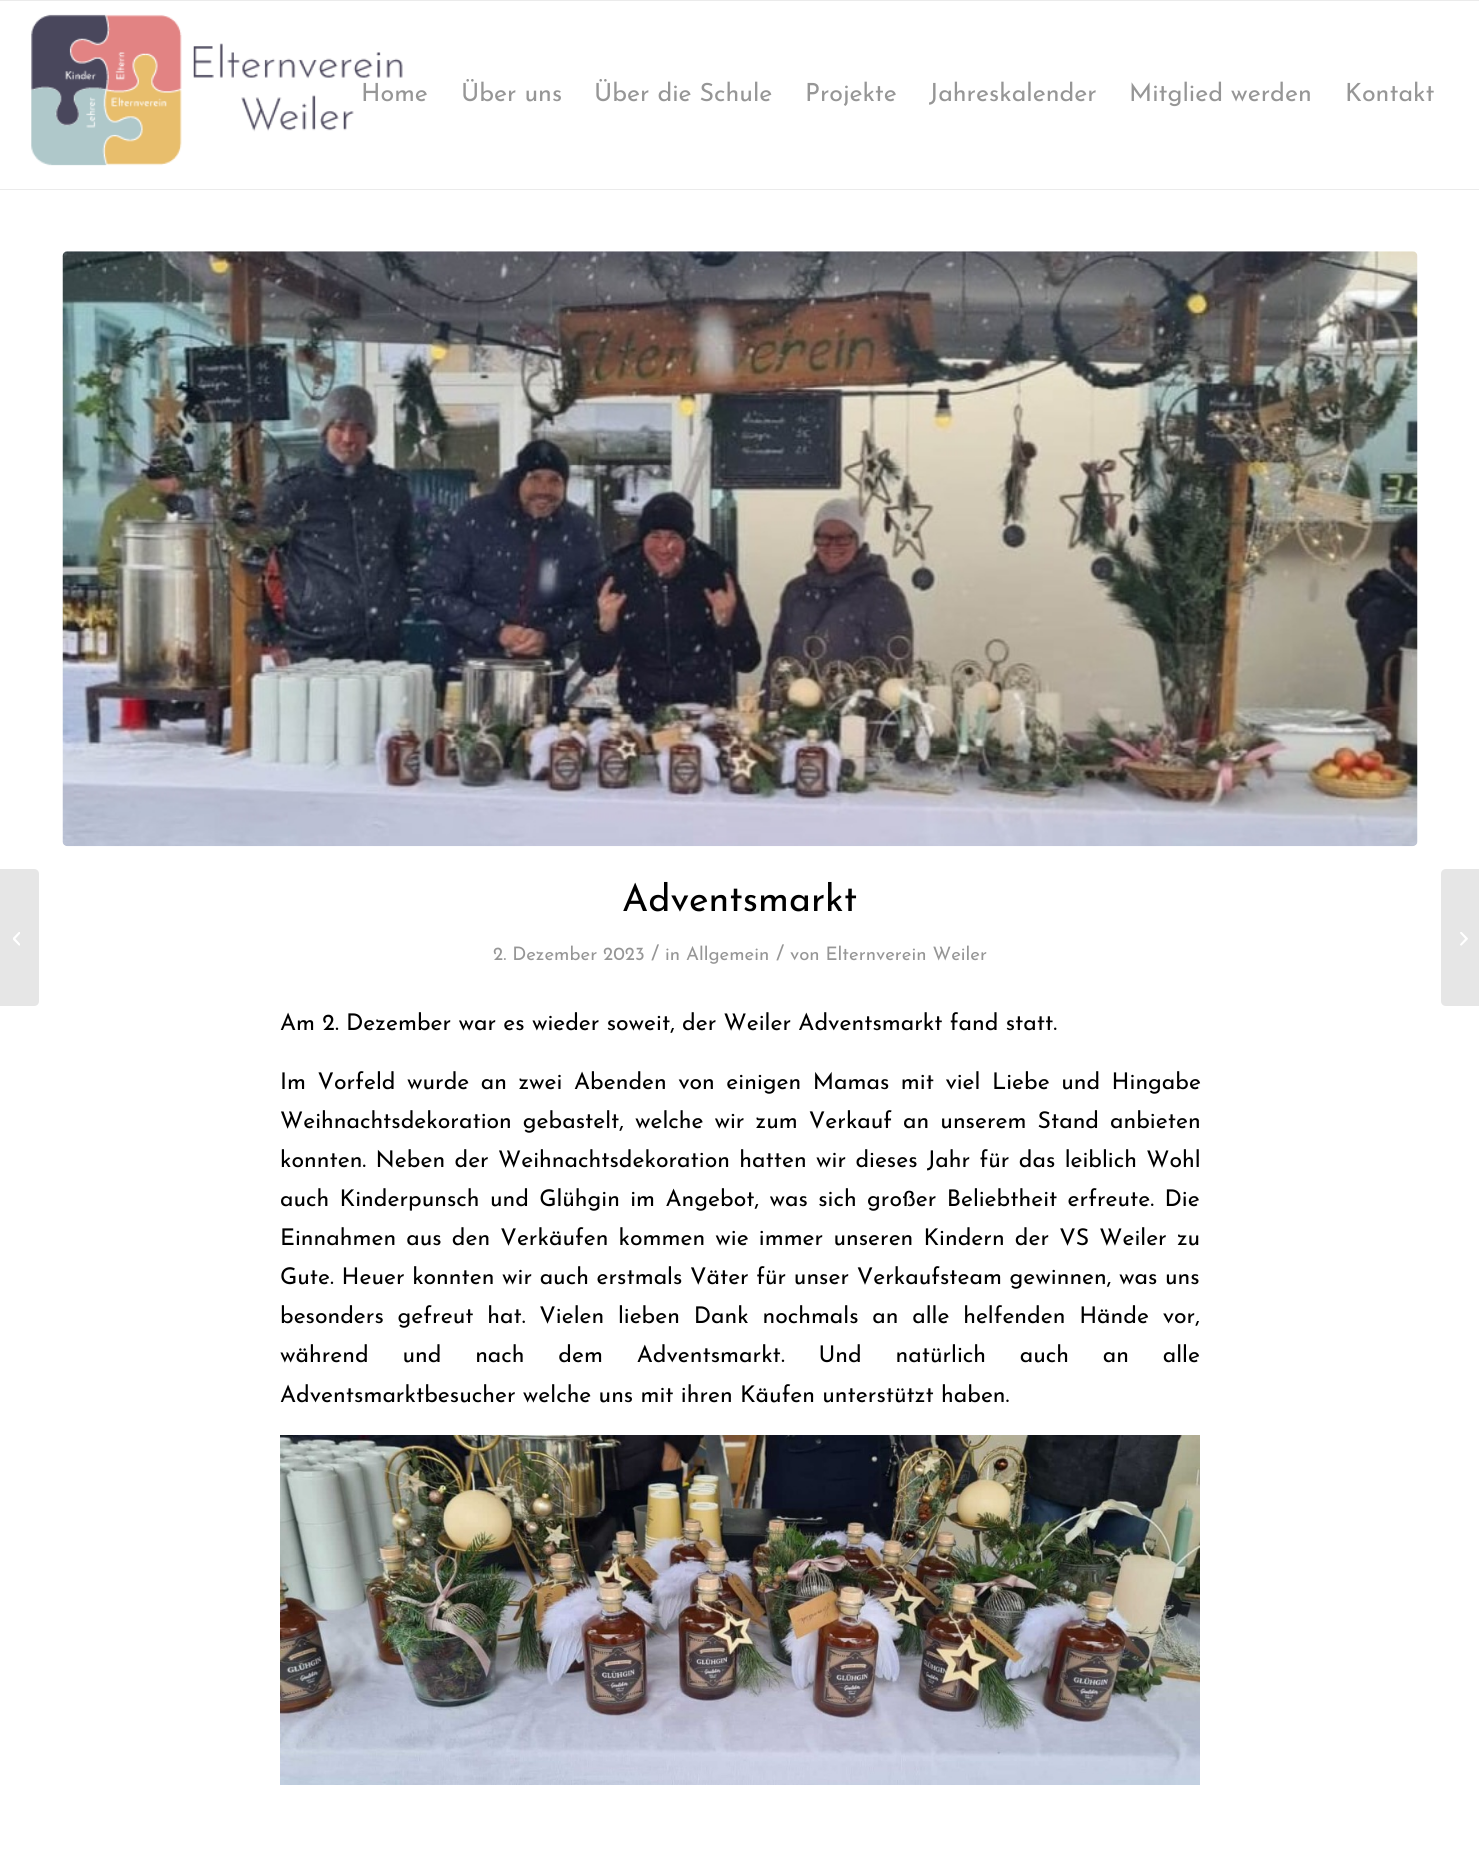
#include <cairo.h>
#include <math.h>
#include <stddef.h>

static cairo_t *c;
static void C(unsigned color){cairo_set_source_rgb(c, (color >> 16) / 255.0, (color >> 8 & 255) / 255.0, (color & 255) / 255.0);}
static void F(const char *family, double size, int italic, int bold){cairo_select_font_face(c, family, italic ? CAIRO_FONT_SLANT_ITALIC : CAIRO_FONT_SLANT_NORMAL,bold ? CAIRO_FONT_WEIGHT_BOLD : CAIRO_FONT_WEIGHT_NORMAL);cairo_set_font_size(c, size);}
static void T(double x, double y, const char *s){cairo_move_to(c, x, y);cairo_show_text(c, s);}
static void L(double x, double y, const char *s, double letter, double word){cairo_move_to(c, x, y);while (*s) {char ch[5] = {0};int n = 0;do ch[n++] = *s++; while ((*s & 0xC0) == 0x80);cairo_show_text(c, ch);cairo_rel_move_to(c, letter + word * (*ch == ' '), 0);}}
static void R(double x, double y, double w, double h){cairo_rectangle(c, x, y, w, h);cairo_fill(c);}
static void I(const char *path, double x, double y, double w, double h){cairo_surface_t *image = cairo_image_surface_create_from_png(path);cairo_save(c);cairo_set_source_surface(c, image, x, y);cairo_rectangle(c, x, y, w, h);cairo_fill(c);cairo_restore(c);cairo_surface_destroy(image);}
int main(void) {
cairo_surface_t *surface = cairo_image_surface_create(CAIRO_FORMAT_RGB24, 1479, 1873);
c = cairo_create(surface);
cairo_font_options_t *options = cairo_font_options_create();
cairo_font_options_set_hint_metrics(options, CAIRO_HINT_METRICS_OFF);
cairo_font_options_set_hint_style(options, CAIRO_HINT_STYLE_NONE);
cairo_set_font_options(c, options);
cairo_set_miter_limit(c, 4);
C(0xffffff);
cairo_paint(c);
C(0xebebeb);
R(0,0,1479,1);
R(0,189,1479,1);
I("1.png",31,14,372,152);
F("Josefin Sans Thin",25,0,0);
C(0x969696);
T(361,101,"Home");
T(461,101,"Über uns");
T(594,101,"Über die Schule");
T(805,101,"Projekte");
T(929,101,"Jahreskalender");
T(1129,101,"Mitglied werden");
T(1345,101,"Kontakt");
C(0xe6e6e6);
cairo_new_path(c);
cairo_move_to(c,0,869);
cairo_line_to(c,34,869);
cairo_curve_to(c,37,869,39,871,39,874);
cairo_line_to(c,39,1001);
cairo_curve_to(c,39,1004,37,1006,34,1006);
cairo_line_to(c,0,1006);
cairo_close_path(c);
cairo_fill(c);
I("2.png",13,932,7,14);
I("3.png",62,251,1356,596);
F("Josefin Sans Thin",37.5,0,0);
C(0x000000);
T(622,911,"Adventsmarkt");
F("Josefin Sans Thin",18.6,0,0);
C(0x969696);
T(493,960,"2. Dezember 2023");
F("Josefin Sans Thin",21,0,0);
T(651,960,"/");
F("Josefin Sans Thin",18.6,0,0);
T(665,960,"in Allgemein");
F("Josefin Sans Thin",21,0,0);
T(776,960,"/");
F("Josefin Sans Thin",18.6,0,0);
T(790,960,"von Elternverein Weiler");
F("Josefin Sans Thin",23,0,0);
C(0x000000);
T(280,1030,"Am 2. Dezember war es wieder soweit, der Weiler Adventsmarkt fand statt.");
L(280,1089,"Im Vorfeld wurde an zwei Abenden von einigen Mamas mit viel Liebe und Hingabe",0,4.25);
L(280,1128,"Weihnachtsdekoration gebastelt, welche wir zum Verkauf an unserem Stand anbieten",0,3.75);
L(280,1167,"konnten. Neben der Weihnachtsdekoration hatten wir dieses Jahr für das leiblich Wohl",0,2.1);
L(280,1206,"auch Kinderpunsch und Glühgin im Angebot, was sich großer Beliebtheit erfreute. Die",0,3.1);
L(280,1245,"Einnahmen aus den Verkäufen kommen wie immer unseren Kindern der VS Weiler zu",0,2.9);
L(280,1284,"Gute. Heuer konnten wir auch erstmals Väter für unser Verkaufsteam gewinnen, was uns",0,.3);
L(280,1323,"besonders gefreut hat. Vielen lieben Dank nochmals an alle helfenden Hände vor,",0,6.5);
L(280,1362,"während und nach dem Adventsmarkt. Und natürlich auch an alle",0,26.5);
T(280,1402,"Adventsmarktbesucher welche uns mit ihren Käufen unterstützt haben.");
I("4.png",280,1435,920,350);
C(0xe6e6e6);
cairo_new_path(c);
cairo_move_to(c,1446,869);
cairo_line_to(c,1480,869);
cairo_line_to(c,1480,1006);
cairo_line_to(c,1446,1006);
cairo_curve_to(c,1443,1006,1441,1004,1441,1001);
cairo_line_to(c,1441,874);
cairo_curve_to(c,1441,871,1443,869,1446,869);
cairo_close_path(c);
cairo_fill(c);
I("5.png",1460,932,8,14);
cairo_surface_write_to_png(surface, "o.png");
cairo_font_options_destroy(options);
cairo_destroy(c);
cairo_surface_destroy(surface);
return 0;
}
